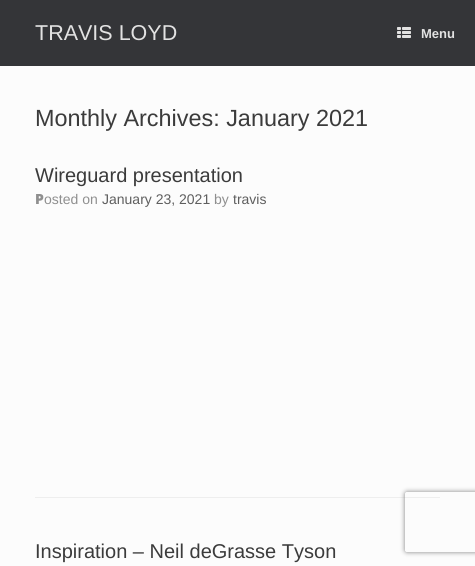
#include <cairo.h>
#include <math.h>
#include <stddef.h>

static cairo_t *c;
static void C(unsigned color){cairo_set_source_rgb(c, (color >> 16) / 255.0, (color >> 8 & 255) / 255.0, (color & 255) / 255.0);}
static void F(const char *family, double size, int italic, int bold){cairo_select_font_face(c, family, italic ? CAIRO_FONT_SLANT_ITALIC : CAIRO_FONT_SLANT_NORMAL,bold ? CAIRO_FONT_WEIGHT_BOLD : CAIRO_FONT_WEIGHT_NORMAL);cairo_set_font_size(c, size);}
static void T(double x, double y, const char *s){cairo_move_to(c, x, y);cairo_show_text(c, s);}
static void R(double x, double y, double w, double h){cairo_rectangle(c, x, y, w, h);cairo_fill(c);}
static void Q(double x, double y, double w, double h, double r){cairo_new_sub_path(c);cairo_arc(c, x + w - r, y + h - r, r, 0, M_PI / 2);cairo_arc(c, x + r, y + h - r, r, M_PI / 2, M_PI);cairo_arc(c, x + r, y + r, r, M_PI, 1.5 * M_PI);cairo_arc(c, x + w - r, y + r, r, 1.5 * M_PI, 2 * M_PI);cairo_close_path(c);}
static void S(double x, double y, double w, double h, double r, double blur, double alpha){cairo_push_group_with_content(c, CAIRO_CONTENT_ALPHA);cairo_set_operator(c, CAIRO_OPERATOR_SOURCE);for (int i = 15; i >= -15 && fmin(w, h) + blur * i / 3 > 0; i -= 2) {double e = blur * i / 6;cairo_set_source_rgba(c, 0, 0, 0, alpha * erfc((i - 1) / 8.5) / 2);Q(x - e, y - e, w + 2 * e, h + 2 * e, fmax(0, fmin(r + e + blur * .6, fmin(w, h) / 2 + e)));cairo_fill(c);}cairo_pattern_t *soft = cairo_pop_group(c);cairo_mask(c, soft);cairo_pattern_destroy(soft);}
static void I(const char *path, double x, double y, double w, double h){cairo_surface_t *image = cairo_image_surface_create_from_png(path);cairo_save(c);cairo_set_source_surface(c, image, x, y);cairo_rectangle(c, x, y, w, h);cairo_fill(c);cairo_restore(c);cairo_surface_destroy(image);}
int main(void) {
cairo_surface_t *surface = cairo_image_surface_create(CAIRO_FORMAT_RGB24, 475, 566);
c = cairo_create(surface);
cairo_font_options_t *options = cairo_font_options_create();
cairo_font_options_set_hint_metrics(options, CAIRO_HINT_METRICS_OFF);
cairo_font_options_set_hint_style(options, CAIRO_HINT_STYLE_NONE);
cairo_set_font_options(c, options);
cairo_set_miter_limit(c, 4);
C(0xfcfcfc);
cairo_paint(c);
C(0x343538);
R(0,0,475,66);
F("Liberation Sans",21.5,0,0);
C(0xe2e2e2);
T(35,40,"TRAVIS LOYD");
I("1.png",397,27,14,11);
F("Liberation Sans",13,0,1);
T(421,38,"Menu");
F("Liberation Sans",23.4,0,0);
C(0x3b3b3b);
T(35,126,"Monthly Archives: January 2021");
C(0xeeeeee);
R(35,497,405,1);
F("Liberation Sans",20,0,0);
C(0x3b3b3b);
T(35,182,"Wireguard presentation");
F("Noto Sans Black",14,0,0);
C(0x8f8f8f);
T(35,204,"P");
F("Liberation Sans",14,0,0);
T(44,204,"osted on");
C(0x5e5e5e);
T(102,204,"January 23, 2021");
C(0x8f8f8f);
T(214,204,"by");
C(0x5e5e5e);
T(233,204,"travis");
F("Liberation Sans",20,0,0);
C(0x3b3b3b);
T(35,558,"Inspiration – Neil deGrasse Tyson");
cairo_save(c);
cairo_set_fill_rule(c,CAIRO_FILL_RULE_EVEN_ODD);
cairo_new_path(c);
cairo_move_to(c,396,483);
cairo_line_to(c,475,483);
cairo_line_to(c,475,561);
cairo_line_to(c,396,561);
cairo_close_path(c);
cairo_move_to(c,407,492);
cairo_line_to(c,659,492);
cairo_curve_to(c,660,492,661,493,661,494);
cairo_line_to(c,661,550);
cairo_curve_to(c,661,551,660,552,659,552);
cairo_line_to(c,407,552);
cairo_curve_to(c,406,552,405,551,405,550);
cairo_line_to(c,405,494);
cairo_curve_to(c,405,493,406,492,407,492);
cairo_close_path(c);
cairo_clip(c);
C(0x808080);
S(405,492,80,60,2,2.5,1);
cairo_restore(c);
cairo_surface_write_to_png(surface, "o.png");
cairo_font_options_destroy(options);
cairo_destroy(c);
cairo_surface_destroy(surface);
return 0;
}
